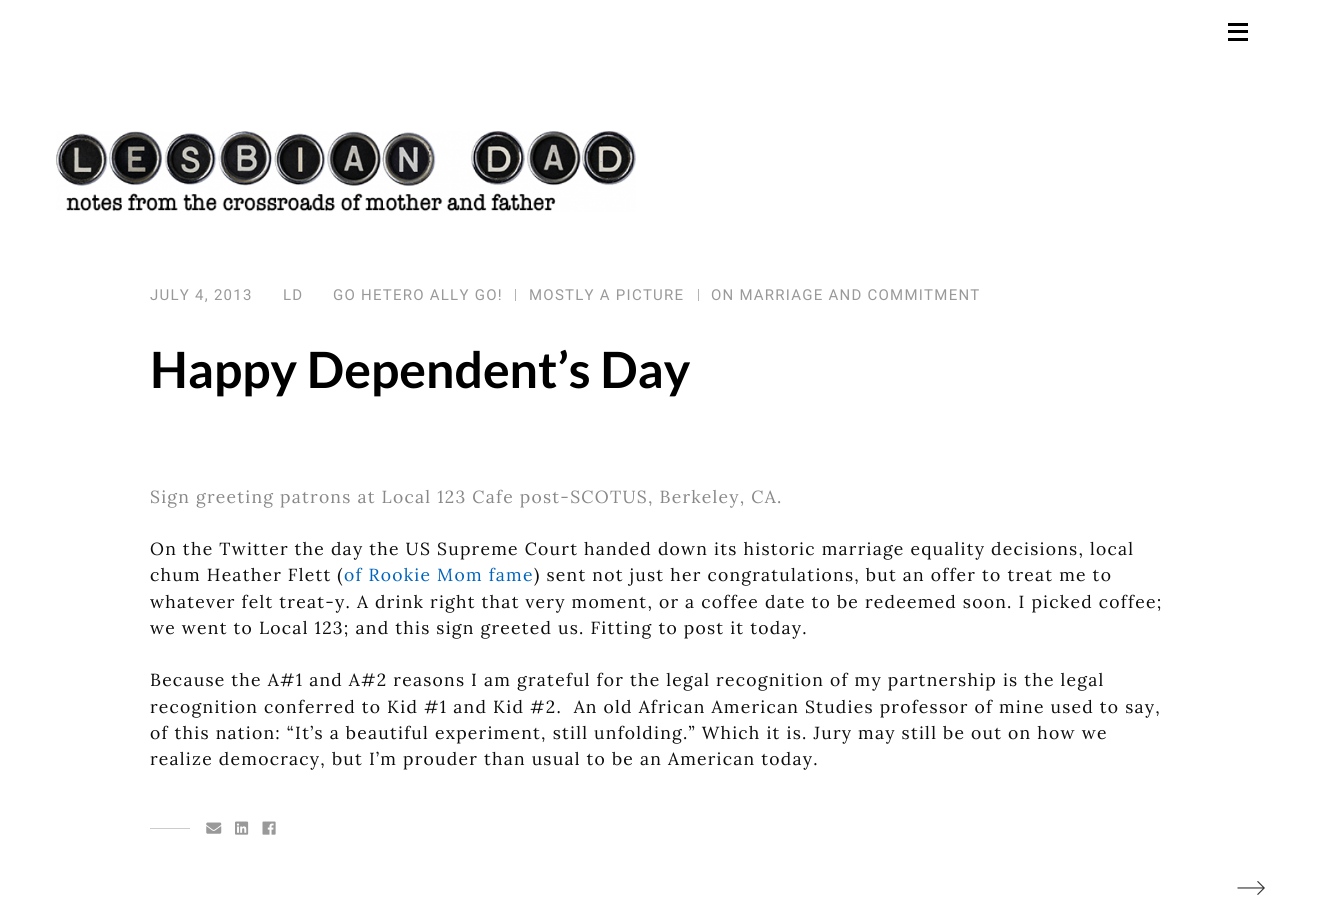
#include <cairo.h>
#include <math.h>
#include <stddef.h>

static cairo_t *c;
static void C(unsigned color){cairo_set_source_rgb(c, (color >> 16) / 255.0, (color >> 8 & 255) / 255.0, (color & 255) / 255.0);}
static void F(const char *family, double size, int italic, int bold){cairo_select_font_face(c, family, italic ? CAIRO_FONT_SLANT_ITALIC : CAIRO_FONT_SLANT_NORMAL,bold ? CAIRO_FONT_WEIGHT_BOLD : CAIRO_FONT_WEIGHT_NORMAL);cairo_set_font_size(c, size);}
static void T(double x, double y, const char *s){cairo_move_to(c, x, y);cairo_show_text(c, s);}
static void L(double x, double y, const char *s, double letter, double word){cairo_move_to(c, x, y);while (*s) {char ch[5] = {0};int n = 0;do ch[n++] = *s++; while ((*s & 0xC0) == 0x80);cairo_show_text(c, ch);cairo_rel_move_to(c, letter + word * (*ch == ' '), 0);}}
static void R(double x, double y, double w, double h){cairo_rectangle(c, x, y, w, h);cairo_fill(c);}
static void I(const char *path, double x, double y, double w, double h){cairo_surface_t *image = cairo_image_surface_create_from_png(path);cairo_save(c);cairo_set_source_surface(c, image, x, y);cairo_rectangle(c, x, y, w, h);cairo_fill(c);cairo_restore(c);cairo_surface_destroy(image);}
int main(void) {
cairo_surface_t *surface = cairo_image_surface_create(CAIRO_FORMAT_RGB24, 1317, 919);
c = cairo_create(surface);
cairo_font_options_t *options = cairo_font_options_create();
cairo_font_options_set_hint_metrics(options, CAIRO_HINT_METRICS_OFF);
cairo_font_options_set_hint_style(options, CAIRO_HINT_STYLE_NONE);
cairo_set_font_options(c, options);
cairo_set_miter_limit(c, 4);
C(0xffffff);
cairo_paint(c);
C(0x000000);
R(1228,23,20,3);
R(1228,30,20,3);
R(1228,38,20,3);
I("1.png",56,131,580,81);
F("Roboto",15,0,0);
C(0x999999);
L(150,300,"JULY 4, 2013",1.25,0);
L(283,300,"LD",1.25,0);
L(333,300,"GO HETERO ALLY GO!",1.25,0);
C(0xb3b3b3);
R(515,289,1,12);
C(0x999999);
L(529,300,"MOSTLY A PICTURE",1.25,0);
C(0xb3b3b3);
R(698,289,1,12);
C(0x999999);
L(711,300,"ON MARRIAGE AND COMMITMENT",1.25,0);
F("Lato",50,0,1);
C(0x000000);
T(150,388,"Happy Dependent’s Day");
F("Lora",17.5,0,0);
C(0x888888);
L(150,503,"Sign greeting patrons at Local 123 Cafe post-SCOTUS, Berkeley, CA.",1.25,0);
C(0x0c0c0c);
L(150,555,"On the Twitter the day the US Supreme Court handed down its historic marriage equality decisions, local",1.25,0);
L(150,581,"chum Heather Flett (",1.25,0);
C(0x0064bc);
L(344,581,"of Rookie Mom fame",1.25,0);
C(0x0c0c0c);
L(534,581,") sent not just her congratulations, but an offer to treat me to",1.25,0);
L(150,608,"whatever felt treat-y. A drink right that very moment, or a coffee date to be redeemed soon. I picked coffee;",1.25,0);
L(150,634,"we went to Local 123; and this sign greeted us. Fitting to post it today.",1.25,0);
L(150,686,"Because the A#1 and A#2 reasons I am grateful for the legal recognition of my partnership is the legal",1.25,0);
L(150,713,"recognition conferred to Kid #1 and Kid #2.  An old African American Studies professor of mine used to say,",1.25,0);
L(150,739,"of this nation: “It’s a beautiful experiment, still unfolding.” Which it is. Jury may still be out on how we",1.25,0);
L(150,765,"realize democracy, but I’m prouder than usual to be an American today.",1.25,0);
C(0xcccccc);
R(150,828,40,1);
I("2.png",206,822,16,12);
I("3.png",235,821,14,14);
I("4.png",262,821,14,14);
I("5.png",1237,881,28,14);
cairo_surface_write_to_png(surface, "o.png");
cairo_font_options_destroy(options);
cairo_destroy(c);
cairo_surface_destroy(surface);
return 0;
}
